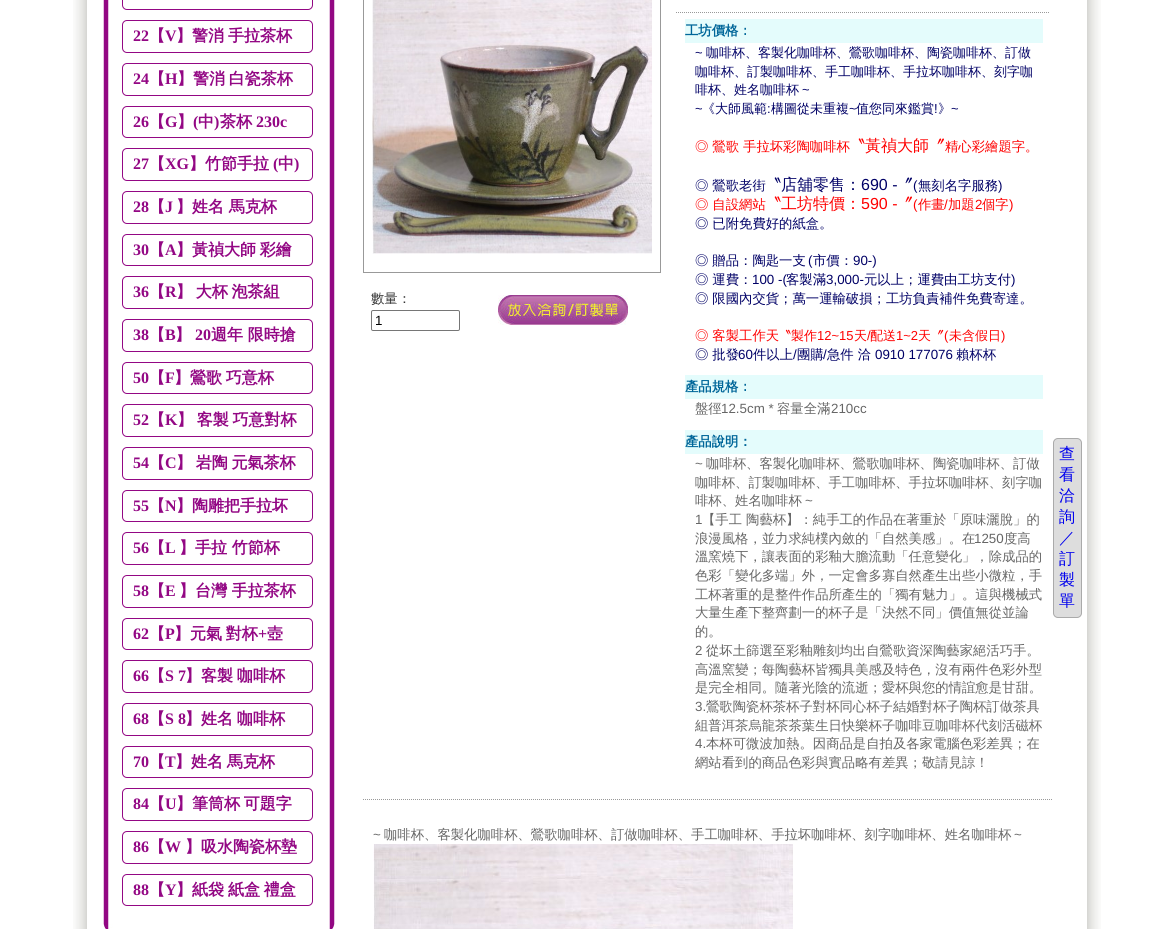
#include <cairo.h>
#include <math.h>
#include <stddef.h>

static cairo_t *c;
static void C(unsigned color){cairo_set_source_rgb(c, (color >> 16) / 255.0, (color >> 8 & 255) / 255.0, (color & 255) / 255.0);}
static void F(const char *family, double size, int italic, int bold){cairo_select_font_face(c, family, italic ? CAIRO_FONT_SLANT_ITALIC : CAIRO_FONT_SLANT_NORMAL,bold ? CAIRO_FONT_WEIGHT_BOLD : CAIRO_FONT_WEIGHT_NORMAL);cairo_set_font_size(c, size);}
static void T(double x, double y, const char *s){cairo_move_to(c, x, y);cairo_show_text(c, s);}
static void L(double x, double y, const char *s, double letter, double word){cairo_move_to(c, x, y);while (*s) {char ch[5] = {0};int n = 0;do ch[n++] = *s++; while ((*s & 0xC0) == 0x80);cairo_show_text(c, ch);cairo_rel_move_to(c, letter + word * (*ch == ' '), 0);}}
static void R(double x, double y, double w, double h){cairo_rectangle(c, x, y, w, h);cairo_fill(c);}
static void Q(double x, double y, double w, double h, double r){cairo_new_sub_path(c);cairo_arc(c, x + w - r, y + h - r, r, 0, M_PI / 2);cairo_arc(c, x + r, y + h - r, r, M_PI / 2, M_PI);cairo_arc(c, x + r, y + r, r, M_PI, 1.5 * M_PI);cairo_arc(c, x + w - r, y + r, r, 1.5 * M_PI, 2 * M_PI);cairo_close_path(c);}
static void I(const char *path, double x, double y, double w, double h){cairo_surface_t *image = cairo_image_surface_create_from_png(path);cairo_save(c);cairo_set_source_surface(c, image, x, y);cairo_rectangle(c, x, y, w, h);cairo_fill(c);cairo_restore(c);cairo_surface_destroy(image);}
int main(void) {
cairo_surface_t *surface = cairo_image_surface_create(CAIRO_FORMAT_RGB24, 1173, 929);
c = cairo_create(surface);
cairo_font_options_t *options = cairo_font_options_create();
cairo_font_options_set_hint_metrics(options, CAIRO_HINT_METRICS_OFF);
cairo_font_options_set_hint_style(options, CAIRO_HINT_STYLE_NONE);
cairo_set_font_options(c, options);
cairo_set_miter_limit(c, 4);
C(0xffffff);
cairo_paint(c);
I("1.png",73,0,1028,929);
C(0xffffff);
R(87,0,1000,929);
I("2.png",103,0,232,916);
Q(122.5,-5.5,190,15,4.5);
C(0x930784);
cairo_set_line_width(c,1);
cairo_stroke(c);
Q(122.5,20.5,190,32,4.5);
cairo_stroke(c);
F("Liberation Serif",16,0,1);
T(133,41,"22");
F("WenQuanYi Zen Hei",16,0,1);
T(149,41,"【");
F("Liberation Serif",16,0,1);
T(165,41,"V");
F("WenQuanYi Zen Hei",16,0,1);
T(176,41,"】警消");
T(228,41,"手拉茶杯");
Q(122.5,63.5,190,32,4.5);
cairo_stroke(c);
F("Liberation Serif",16,0,1);
T(133,84,"24");
F("WenQuanYi Zen Hei",16,0,1);
T(149,84,"【");
F("Liberation Serif",16,0,1);
T(165,84,"H");
F("WenQuanYi Zen Hei",16,0,1);
L(177,84,"】警消 白瓷茶杯",0,-1);
Q(122.5,106.5,190,31,4.5);
cairo_stroke(c);
F("Liberation Serif",16,0,1);
T(133,127,"26");
F("WenQuanYi Zen Hei",16,0,1);
T(149,127,"【");
F("Liberation Serif",16,0,1);
T(165,127,"G");
F("WenQuanYi Zen Hei",16,0,1);
T(177,127,"】");
F("Liberation Serif",16,0,1);
T(193,127,"(");
F("WenQuanYi Zen Hei",16,0,1);
T(198,127,"中");
F("Liberation Serif",16,0,1);
T(214,127,")");
F("WenQuanYi Zen Hei",16,0,1);
T(220,127,"茶杯");
F("Liberation Serif",16,0,1);
T(256,127,"230c");
Q(122.5,148.5,190,32,4.5);
cairo_stroke(c);
T(133,169,"27");
F("WenQuanYi Zen Hei",16,0,1);
T(149,169,"【");
F("Liberation Serif",16,0,1);
T(165,169,"XG");
F("WenQuanYi Zen Hei",16,0,1);
T(189,169,"】竹節手拉");
F("Liberation Serif",16,0,1);
T(273,169,"(");
F("WenQuanYi Zen Hei",16,0,1);
T(278,169,"中");
F("Liberation Serif",16,0,1);
T(294,169,")");
Q(122.5,191.5,190,32,4.5);
cairo_stroke(c);
T(133,212,"28");
F("WenQuanYi Zen Hei",16,0,1);
T(149,212,"【");
F("Liberation Serif",16,0,1);
T(165,212,"J");
F("WenQuanYi Zen Hei",16,0,1);
T(176,212,"】姓名 馬克杯");
Q(122.5,234.5,190,31,4.5);
cairo_stroke(c);
F("Liberation Serif",16,0,1);
T(133,255,"30");
F("WenQuanYi Zen Hei",16,0,1);
T(149,255,"【");
F("Liberation Serif",16,0,1);
T(165,255,"A");
F("WenQuanYi Zen Hei",16,0,1);
L(176,255,"】黃禎大師 彩繪",0,-1);
Q(122.5,276.5,190,32,4.5);
cairo_stroke(c);
F("Liberation Serif",16,0,1);
T(133,297,"36");
F("WenQuanYi Zen Hei",16,0,1);
T(149,297,"【");
F("Liberation Serif",16,0,1);
T(165,297,"R");
F("WenQuanYi Zen Hei",16,0,1);
L(176,297,"】 大杯 泡茶組",0,-1);
Q(122.5,319.5,190,32,4.5);
cairo_stroke(c);
F("Liberation Serif",16,0,1);
T(133,340,"38");
F("WenQuanYi Zen Hei",16,0,1);
T(149,340,"【");
F("Liberation Serif",16,0,1);
T(165,340,"B");
F("WenQuanYi Zen Hei",16,0,1);
T(175,340,"】");
F("Liberation Serif",16,0,1);
T(195,340,"20");
F("WenQuanYi Zen Hei",16,0,1);
T(211,340,"週年 限時搶");
Q(122.5,362.5,190,31,4.5);
cairo_stroke(c);
F("Liberation Serif",16,0,1);
T(133,383,"50");
F("WenQuanYi Zen Hei",16,0,1);
T(149,383,"【");
F("Liberation Serif",16,0,1);
T(165,383,"F");
F("WenQuanYi Zen Hei",16,0,1);
L(174,383,"】鶯歌 巧意杯",0,-1);
Q(122.5,404.5,190,32,4.5);
cairo_stroke(c);
F("Liberation Serif",16,0,1);
T(133,425,"52");
F("WenQuanYi Zen Hei",16,0,1);
T(149,425,"【");
F("Liberation Serif",16,0,1);
T(165,425,"K");
F("WenQuanYi Zen Hei",16,0,1);
L(177,425,"】 客製 巧意對杯",0,-1);
Q(122.5,447.5,190,32,4.5);
cairo_stroke(c);
F("Liberation Serif",16,0,1);
T(133,468,"54");
F("WenQuanYi Zen Hei",16,0,1);
T(149,468,"【");
F("Liberation Serif",16,0,1);
T(165,468,"C");
F("WenQuanYi Zen Hei",16,0,1);
L(176,468,"】 岩陶 元氣茶杯",0,-1);
Q(122.5,490.5,190,31,4.5);
cairo_stroke(c);
F("Liberation Serif",16,0,1);
T(133,511,"55");
F("WenQuanYi Zen Hei",16,0,1);
T(149,511,"【");
F("Liberation Serif",16,0,1);
T(165,511,"N");
F("WenQuanYi Zen Hei",16,0,1);
T(176,511,"】陶雕把手拉坏");
Q(122.5,532.5,190,32,4.5);
cairo_stroke(c);
F("Liberation Serif",16,0,1);
T(133,553,"56");
F("WenQuanYi Zen Hei",16,0,1);
T(149,553,"【");
F("Liberation Serif",16,0,1);
T(165,553,"L");
F("WenQuanYi Zen Hei",16,0,1);
T(179,553,"】手拉 竹節杯");
Q(122.5,575.5,190,32,4.5);
cairo_stroke(c);
F("Liberation Serif",16,0,1);
T(133,596,"58");
F("WenQuanYi Zen Hei",16,0,1);
T(149,596,"【");
F("Liberation Serif",16,0,1);
T(165,596,"E");
F("WenQuanYi Zen Hei",16,0,1);
T(179,596,"】台灣 手拉茶杯");
Q(122.5,618.5,190,31,4.5);
cairo_stroke(c);
F("Liberation Serif",16,0,1);
T(133,639,"62");
F("WenQuanYi Zen Hei",16,0,1);
T(149,639,"【");
F("Liberation Serif",16,0,1);
T(165,639,"P");
F("WenQuanYi Zen Hei",16,0,1);
L(174,639,"】元氣 對杯",0,-1);
F("Liberation Serif",16,0,1);
T(258,639,"+");
F("WenQuanYi Zen Hei",16,0,1);
T(267,639,"壺");
Q(122.5,660.5,190,32,4.5);
cairo_stroke(c);
F("Liberation Serif",16,0,1);
T(133,681,"66");
F("WenQuanYi Zen Hei",16,0,1);
T(149,681,"【");
F("Liberation Serif",16,0,1);
T(165,681,"S 7");
F("WenQuanYi Zen Hei",16,0,1);
T(185,681,"】客製");
T(237,681,"咖啡杯");
Q(122.5,703.5,190,32,4.5);
cairo_stroke(c);
F("Liberation Serif",16,0,1);
T(133,724,"68");
F("WenQuanYi Zen Hei",16,0,1);
T(149,724,"【");
F("Liberation Serif",16,0,1);
T(165,724,"S 8");
F("WenQuanYi Zen Hei",16,0,1);
T(185,724,"】姓名");
T(237,724,"咖啡杯");
Q(122.5,746.5,190,31,4.5);
cairo_stroke(c);
F("Liberation Serif",16,0,1);
T(133,767,"70");
F("WenQuanYi Zen Hei",16,0,1);
T(149,767,"【");
F("Liberation Serif",16,0,1);
T(165,767,"T");
F("WenQuanYi Zen Hei",16,0,1);
L(175,767,"】姓名 馬克杯",0,-1);
Q(122.5,788.5,190,32,4.5);
cairo_stroke(c);
F("Liberation Serif",16,0,1);
T(133,809,"84");
F("WenQuanYi Zen Hei",16,0,1);
T(149,809,"【");
F("Liberation Serif",16,0,1);
T(165,809,"U");
F("WenQuanYi Zen Hei",16,0,1);
L(176,809,"】筆筒杯 可題字",0,-1);
Q(122.5,831.5,190,32,4.5);
cairo_stroke(c);
F("Liberation Serif",16,0,1);
T(133,852,"86");
F("WenQuanYi Zen Hei",16,0,1);
T(149,852,"【");
F("Liberation Serif",16,0,1);
T(165,852,"W");
F("WenQuanYi Zen Hei",16,0,1);
T(185,852,"】吸水陶瓷杯墊");
Q(122.5,874.5,190,31,4.5);
cairo_stroke(c);
F("Liberation Serif",16,0,1);
T(133,895,"88");
F("WenQuanYi Zen Hei",16,0,1);
T(149,895,"【");
F("Liberation Serif",16,0,1);
T(165,895,"Y");
F("WenQuanYi Zen Hei",16,0,1);
T(176,895,"】紙袋");
L(228,895,"紙盒 禮盒",0,-1);
I("3.png",103,916,232,13);
cairo_new_path(c);
cairo_move_to(c,676,12.5);
cairo_line_to(c,1049,12.5);
C(0x999999);
cairo_set_dash(c,(double[]){1,1},2,0);
cairo_stroke(c);
cairo_rectangle(c,363.5,-.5,297,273);
cairo_set_dash(c,NULL,0,0);
cairo_stroke(c);
I("4.png",372,0,280,254);
F("WenQuanYi Zen Hei Medium",13.35,0,0);
C(0x333333);
T(371,303,"數量：");
Q(371.5,310.5,88,20,1.5);
C(0x767676);
cairo_stroke(c);
F("Liberation Sans",13.35,0,0);
C(0x000000);
T(375,325,"1");
I("5.png",498,295,130,30);
C(0xe4fcfc);
R(685,19,358,24);
F("WenQuanYi Zen Hei",13.35,0,1);
C(0x006699);
T(685,35,"工坊價格：");
F("Liberation Sans",13,0,0);
C(0x000066);
T(695,57,"~");
F("WenQuanYi Zen Hei Medium",13,0,0);
T(706,57,"咖啡杯、客製化咖啡杯、鶯歌咖啡杯、陶瓷咖啡杯、訂做");
T(695,76,"咖啡杯、訂製咖啡杯、手工咖啡杯、手拉坏咖啡杯、刻字咖");
T(695,94,"啡杯、姓名咖啡杯");
F("Liberation Sans",13,0,0);
T(802,94,"~");
F("WenQuanYi Zen Hei Medium",13,0,0);
T(702,113,"《大師風範 構圖從未重複");
T(856,113,"值您同來鑑賞 》");
F("Liberation Sans",13,0,0);
T(695,113,"~");
T(767,113,":");
T(849,113,"~");
T(934,113,"!");
T(951,113,"~");
F("WenQuanYi Zen Hei Medium",13.35,0,0);
C(0xff0000);
T(695,151,"◎ 鶯歌 手拉坏彩陶咖啡杯");
F("WenQuanYi Zen Hei Medium",16,0,0);
T(849,151,"〝黃禎大師〞");
F("WenQuanYi Zen Hei Medium",13.35,0,0);
T(945,151,"精心彩繪題字。");
C(0x000066);
T(695,190,"◎ 鶯歌老街");
F("WenQuanYi Zen Hei Medium",16,0,0);
T(765,190,"〝店舖零售：");
F("Liberation Sans",16,0,0);
T(861,190,"690 -");
F("WenQuanYi Zen Hei Medium",16,0,0);
T(897,190,"〞");
F("Liberation Sans",13.35,0,0);
T(913,190,"(");
F("WenQuanYi Zen Hei Medium",13.35,0,0);
T(918,190,"無刻名字服務");
F("Liberation Sans",13.35,0,0);
T(998,190,")");
F("WenQuanYi Zen Hei Medium",13.35,0,0);
C(0xff0000);
T(695,209,"◎ 自設網站");
F("WenQuanYi Zen Hei Medium",16,0,0);
T(765,209,"〝工坊特價：");
F("Liberation Sans",16,0,0);
T(861,209,"590 -");
F("WenQuanYi Zen Hei Medium",16,0,0);
T(897,209,"〞");
F("Liberation Sans",13.35,0,0);
T(913,209,"(");
F("WenQuanYi Zen Hei Medium",13.35,0,0);
T(918,209,"作畫");
F("Liberation Sans",13.35,0,0);
T(944,209,"/");
F("WenQuanYi Zen Hei Medium",13.35,0,0);
T(948,209,"加題");
F("Liberation Sans",13.35,0,0);
T(975,209,"2");
F("WenQuanYi Zen Hei Medium",13.35,0,0);
T(982,209,"個字");
F("Liberation Sans",13.35,0,0);
T(1009,209,")");
F("WenQuanYi Zen Hei Medium",13.35,0,0);
C(0x000066);
T(695,228,"◎ 已附免費好的紙盒。");
T(695,265,"◎ 贈品：陶匙一支");
F("Liberation Sans",13.35,0,0);
T(808,265,"(");
F("WenQuanYi Zen Hei Medium",13.35,0,0);
T(813,265,"市價：");
F("Liberation Sans",13.35,0,0);
T(853,265,"90-)");
F("WenQuanYi Zen Hei Medium",13.35,0,0);
T(695,284,"◎ 運費：");
F("Liberation Sans",13.35,0,0);
T(752,284,"100 -(");
F("WenQuanYi Zen Hei Medium",13.35,0,0);
T(786,284,"客製滿");
F("Liberation Sans",13.35,0,0);
T(826,284,"3,000-");
F("WenQuanYi Zen Hei Medium",13.35,0,0);
T(864,284,"元以上；運費由工坊支付");
F("Liberation Sans",13.35,0,0);
T(1011,284,")");
F("WenQuanYi Zen Hei Medium",13.35,0,0);
T(695,303,"◎ 限國內交貨；萬一運輸破損；工坊負責補件免費寄達。");
C(0xff0000);
T(695,340,"◎ 客製工作天");
F("WenQuanYi Zen Hei Medium",13,0,0);
T(778,340,"〝製作");
F("Liberation Sans",13,0,0);
T(817,340,"12~15");
F("WenQuanYi Zen Hei Medium",13,0,0);
T(854,340,"天");
F("Liberation Sans",13,0,0);
T(867,340,"/");
F("WenQuanYi Zen Hei Medium",13,0,0);
T(870,340,"配送");
F("Liberation Sans",13,0,0);
T(896,340,"1~2");
F("WenQuanYi Zen Hei Medium",13,0,0);
T(918,340,"天〞");
F("Liberation Sans",13,0,0);
T(944,340,"(");
F("WenQuanYi Zen Hei Medium",13,0,0);
T(949,340,"未含假日");
F("Liberation Sans",13,0,0);
T(1001,340,")");
F("WenQuanYi Zen Hei Medium",13.35,0,0);
C(0x000066);
T(695,359,"◎ 批發");
F("Liberation Sans",13.35,0,0);
T(738,359,"60");
F("WenQuanYi Zen Hei Medium",13.35,0,0);
T(753,359,"件以上 團購");
F("Liberation Sans",13.35,0,0);
T(823,359,"/");
F("WenQuanYi Zen Hei Medium",13.35,0,0);
T(827,359,"急件 洽");
T(956,359,"賴杯杯");
F("Liberation Sans",13.35,0,0);
T(793,359,"/");
T(875,359,"0910 177076");
C(0xe4fcfc);
R(685,375,358,24);
F("WenQuanYi Zen Hei",13.35,0,1);
C(0x006699);
T(685,391,"產品規格：");
F("WenQuanYi Zen Hei Medium",13.35,0,0);
C(0x666666);
T(695,413,"盤徑");
F("Liberation Sans",13.35,0,0);
T(721,413,"12.5cm *");
F("WenQuanYi Zen Hei Medium",13.35,0,0);
T(777,413,"容量全滿");
F("Liberation Sans",13.35,0,0);
T(831,413,"210cc");
C(0xe4fcfc);
R(685,430,358,24);
F("WenQuanYi Zen Hei",13.35,0,1);
C(0x006699);
T(685,446,"產品說明：");
F("Liberation Sans",13.35,0,0);
C(0x666666);
T(695,468,"~");
F("WenQuanYi Zen Hei Medium",13.35,0,0);
T(706,468,"咖啡杯、客製化咖啡杯、鶯歌咖啡杯、陶瓷咖啡杯、訂做");
T(695,487,"咖啡杯、訂製咖啡杯、手工咖啡杯、手拉坏咖啡杯、刻字咖");
T(695,505,"啡杯、姓名咖啡杯");
F("Liberation Sans",13.35,0,0);
T(805,505,"~");
T(695,524,"1");
F("WenQuanYi Zen Hei Medium",13.35,0,0);
T(702,524,"【手工 陶藝杯】：純手工的作品在著重於「原味灑脫」的");
T(695,543,"浪漫風格，並力求純樸內斂的「自然美感」。在");
F("Liberation Sans",13.35,0,0);
T(974,543,"1250");
F("WenQuanYi Zen Hei Medium",13.35,0,0);
T(1004,543,"度高");
T(695,561,"溫窯燒下，讓表面的彩釉大膽流動「任意變化」，除成品的");
T(695,580,"色彩「變化多端」外，一定會多寡自然產生出些小微粒，手");
T(695,599,"工杯著重的是整件作品所產生的「獨有魅力」。這與機械式");
T(695,617,"大量生產下整齊劃一的杯子是「決然不同」價值無從並論");
T(695,636,"的。");
F("Liberation Sans",13.35,0,0);
T(695,655,"2");
F("WenQuanYi Zen Hei Medium",13.35,0,0);
T(706,655,"從坏土篩選至彩釉雕刻均出自鶯歌資深陶藝家絕活巧手。");
T(695,674,"高溫窯變；每陶藝杯皆獨具美感及特色，沒有兩件色彩外型");
T(695,692,"是完全相同。隨著光陰的流逝；愛杯與您的情誼愈是甘甜。");
F("Liberation Sans",13.35,0,0);
T(695,711,"3.");
F("WenQuanYi Zen Hei Medium",13.35,0,0);
T(706,711,"鶯歌陶瓷杯茶杯子對杯同心杯子結婚對杯子陶杯訂做茶具");
T(695,730,"組普洱茶烏龍茶茶葉生日快樂杯子咖啡豆咖啡杯代刻活磁杯");
F("Liberation Sans",13.35,0,0);
T(695,748,"4.");
F("WenQuanYi Zen Hei Medium",13.35,0,0);
T(706,748,"本杯可微波加熱。因商品是自拍及各家電腦色彩差異；在");
T(695,767,"網站看到的商品色彩與實品略有差異；敬請見諒！");
cairo_new_path(c);
cairo_move_to(c,363,799.5);
cairo_line_to(c,1053,799.5);
C(0x999999);
cairo_set_dash(c,(double[]){1,1},2,0);
cairo_stroke(c);
F("Liberation Sans",13.35,0,0);
C(0x666666);
T(373,839,"~");
F("WenQuanYi Zen Hei Medium",13.35,0,0);
T(384,839,"咖啡杯、客製化咖啡杯、鶯歌咖啡杯、訂做咖啡杯、手工咖啡杯、手拉坏咖啡杯、刻字咖啡杯、姓名咖啡杯");
F("Liberation Sans",13.35,0,0);
T(1014,839,"~");
I("6.png",373,844,420,85);
C(0xdddddd);
Q(1053.5,438.5,28,179,4.5);
cairo_fill_preserve(c);
C(0xaaaaaa);
cairo_set_dash(c,NULL,0,0);
cairo_stroke(c);
F("WenQuanYi Zen Hei Medium",16,0,0);
C(0x0000ee);
T(1059,459,"查");
T(1059,480,"看");
T(1059,501,"洽");
T(1059,522,"詢");
T(1059,543,"／");
T(1059,564,"訂");
T(1059,585,"製");
T(1059,606,"單");
cairo_surface_write_to_png(surface, "o.png");
cairo_font_options_destroy(options);
cairo_destroy(c);
cairo_surface_destroy(surface);
return 0;
}
